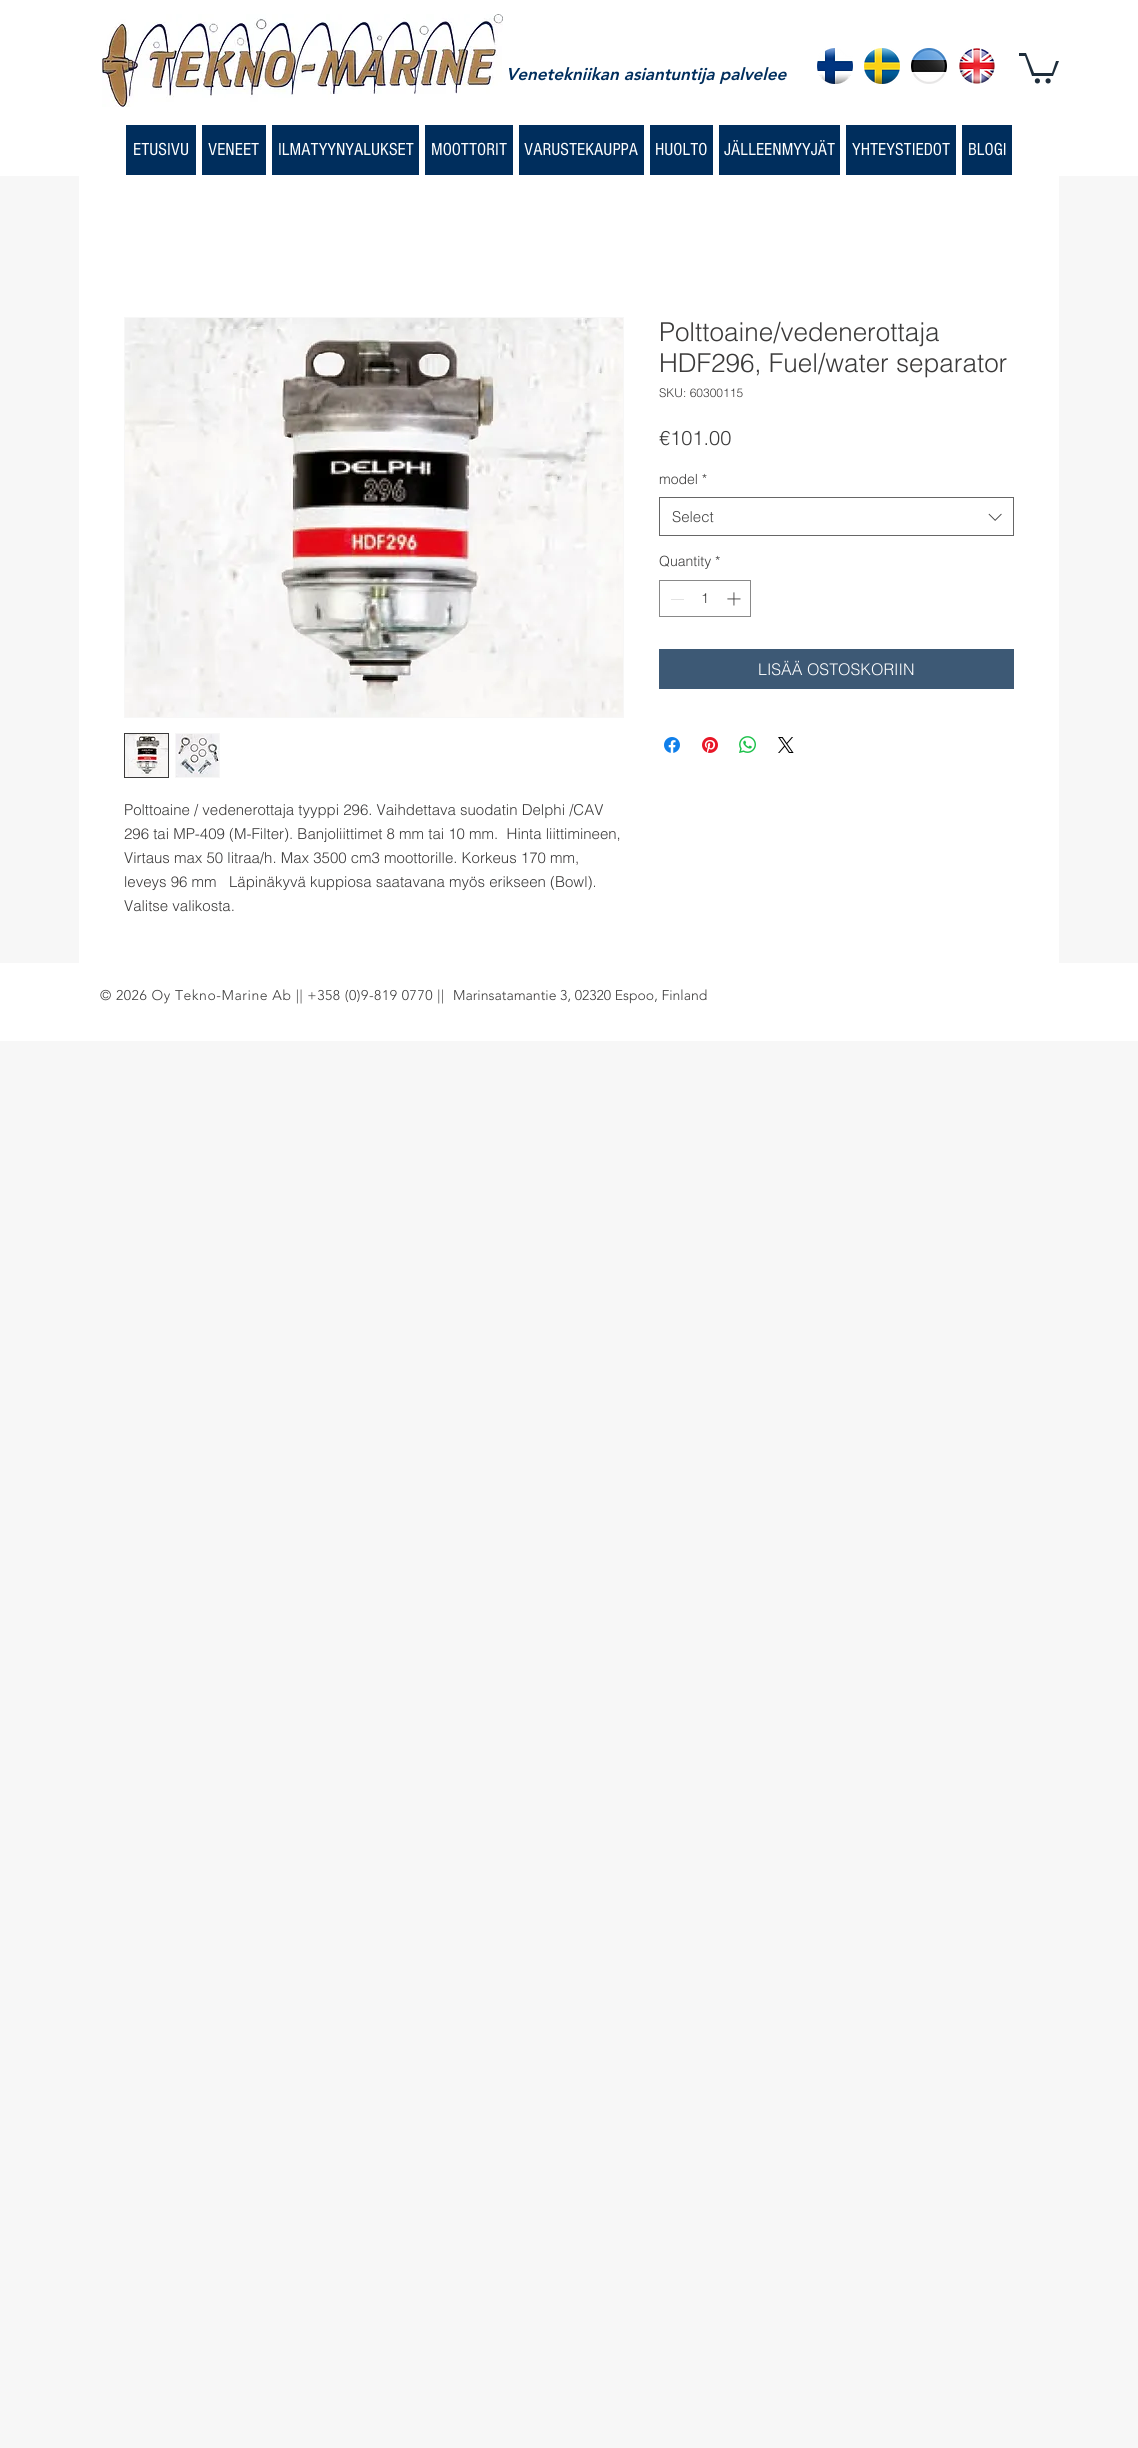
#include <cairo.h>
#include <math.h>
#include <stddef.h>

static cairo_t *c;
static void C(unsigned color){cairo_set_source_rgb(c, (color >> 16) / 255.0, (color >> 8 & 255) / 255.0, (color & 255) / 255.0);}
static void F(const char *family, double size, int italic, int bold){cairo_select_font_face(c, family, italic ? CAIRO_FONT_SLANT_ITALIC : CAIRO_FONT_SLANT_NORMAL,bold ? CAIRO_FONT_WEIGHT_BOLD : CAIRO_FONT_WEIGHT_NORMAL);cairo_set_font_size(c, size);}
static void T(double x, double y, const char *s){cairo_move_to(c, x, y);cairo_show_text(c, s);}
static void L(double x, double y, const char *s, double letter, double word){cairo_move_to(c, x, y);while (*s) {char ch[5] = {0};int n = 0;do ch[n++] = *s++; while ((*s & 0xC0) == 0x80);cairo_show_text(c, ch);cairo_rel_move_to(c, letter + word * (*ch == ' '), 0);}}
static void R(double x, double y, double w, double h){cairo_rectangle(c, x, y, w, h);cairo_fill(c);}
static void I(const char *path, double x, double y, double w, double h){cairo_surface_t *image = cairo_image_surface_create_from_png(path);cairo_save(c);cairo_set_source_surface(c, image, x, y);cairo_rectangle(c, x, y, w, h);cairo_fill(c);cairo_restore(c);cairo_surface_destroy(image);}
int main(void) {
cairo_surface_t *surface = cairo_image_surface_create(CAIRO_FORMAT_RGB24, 1138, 2448);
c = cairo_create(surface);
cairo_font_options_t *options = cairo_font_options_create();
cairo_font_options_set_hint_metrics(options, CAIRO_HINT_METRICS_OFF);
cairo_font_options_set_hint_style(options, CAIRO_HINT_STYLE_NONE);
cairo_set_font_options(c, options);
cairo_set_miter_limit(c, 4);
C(0xf7f7f7);
cairo_paint(c);
C(0xffffff);
R(0,0,1138,176);
I("1.png",102,14,401,93);
F("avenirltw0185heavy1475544 Black",17,1,0);
C(0x002e5d);
T(506,80,"Venetekniikan asiantuntija palvelee");
I("2.png",817,48,36,36);
I("3.png",864,48,36,36);
I("4.png",911,48,36,36);
I("5.png",959,48,36,36);
C(0x1e2d3b);
cairo_new_path(c);
cairo_move_to(c,1059,61);
cairo_line_to(c,1053,76);
cairo_line_to(c,1032,76);
cairo_line_to(c,1025,56);
cairo_line_to(c,1019,56);
cairo_line_to(c,1019,53);
cairo_line_to(c,1026,53);
cairo_line_to(c,1034,73);
cairo_line_to(c,1052,73);
cairo_line_to(c,1056,61);
cairo_fill(c);
cairo_arc(c,1048.1,80.9,2.6,0,2 * M_PI);
cairo_fill(c);
cairo_arc(c,1037.4,80.9,2.6,0,2 * M_PI);
cairo_fill(c);
C(0x002e5d);
R(126,125,70,50);
F("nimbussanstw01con",18,0,0);
C(0xffffff);
T(133,155,"ETUSIVU");
C(0x002e5d);
R(202,125,64,50);
C(0xffffff);
T(208,155,"VENEET");
C(0x002e5d);
R(272,125,147,50);
C(0xffffff);
T(278,155,"ILMATYYNYALUKSET");
C(0x002e5d);
R(425,125,88,50);
C(0xffffff);
T(431,155,"MOOTTORIT");
C(0x002e5d);
R(519,125,125,50);
C(0xffffff);
T(524,155,"VARUSTEKAUPPA");
C(0x002e5d);
R(650,125,63,50);
C(0xffffff);
T(655,155,"HUOLTO");
C(0x002e5d);
R(719,125,121,50);
C(0xffffff);
T(724,155,"JÄLLEENMYYJÄT");
C(0x002e5d);
R(846,125,110,50);
C(0xffffff);
T(852,155,"YHTEYSTIEDOT");
C(0x002e5d);
R(962,125,50,50);
C(0xffffff);
T(968,155,"BLOGI");
R(79,176,980,787);
F("helvetica Light",26,0,0);
C(0x3b3a3a);
T(659,341,"Polttoaine/vedenerottaja");
T(659,372,"HDF296, Fuel/water separator");
F("helvetica Light",12,0,0);
T(659,397,"SKU: 60300115");
F("helvetica Light",20,0,0);
T(659,445,"€101.00");
F("helvetica Light",14,0,0);
T(659,484,"model *");
cairo_rectangle(c,659.5,497.5,354,38);
C(0x666666);
cairo_set_line_width(c,1);
cairo_stroke(c);
F("helvetica Light",15,0,0);
C(0x444444);
T(672,522,"Select");
I("6.png",988,513,14,8);
F("helvetica Light",14,0,0);
C(0x3b3a3a);
T(659,566,"Quantity *");
cairo_rectangle(c,659.5,580.5,91,36);
C(0x898989);
cairo_stroke(c);
C(0xe3e3e3);
R(671,599,13,1);
C(0x3b3a3a);
T(701,603,"1");
I("7.png",727,592,14,14);
C(0x3d5975);
R(659,649,355,40);
F("helvetica Light",16,0,0);
C(0xffffff);
T(758,675,"LISÄÄ OSTOSKORIIN");
I("8.png",664,737,16,16);
I("9.png",702,737,16,16);
I("10.png",739,736,17,17);
I("11.png",778,737,16,16);
cairo_rectangle(c,124.5,317.5,499,400);
C(0xf7f7f7);
cairo_stroke(c);
I("12.png",125,318,498,399);
cairo_rectangle(c,124.5,733.5,44,44);
C(0x3b3a3a);
cairo_stroke(c);
I("13.png",125,734,43,43);
C(0xf7f7f7);
R(175,733,45,45);
I("14.png",176,734,43,43);
F("helvetica Light",15,0,0);
C(0x3b3a3a);
T(124,815,"Polttoaine / vedenerottaja tyyppi 296. Vaihdettava suodatin Delphi /CAV");
T(124,839,"296 tai MP-409 (M-Filter). Banjoliittimet 8 mm tai 10 mm.  Hinta liittimineen,");
T(124,863,"Virtaus max 50 litraa/h. Max 3500 cm3 moottorille. Korkeus 170 mm,");
T(124,887,"leveys 96 mm   Läpinäkyvä kuppiosa saatavana myös erikseen (Bowl).");
T(124,911,"Valitse valikosta.");
C(0xffffff);
R(0,963,1138,78);
F("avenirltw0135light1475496 Light",14,0,0);
C(0x3b3a3a);
L(100,1000,"© 2026 Oy Tekno-Marine Ab || +358 (0)9-819 0770 ||",.55,0);
T(453,1000,"Marinsatamantie 3, 02320 Espoo, Finland");
cairo_surface_write_to_png(surface, "o.png");
cairo_font_options_destroy(options);
cairo_destroy(c);
cairo_surface_destroy(surface);
return 0;
}
